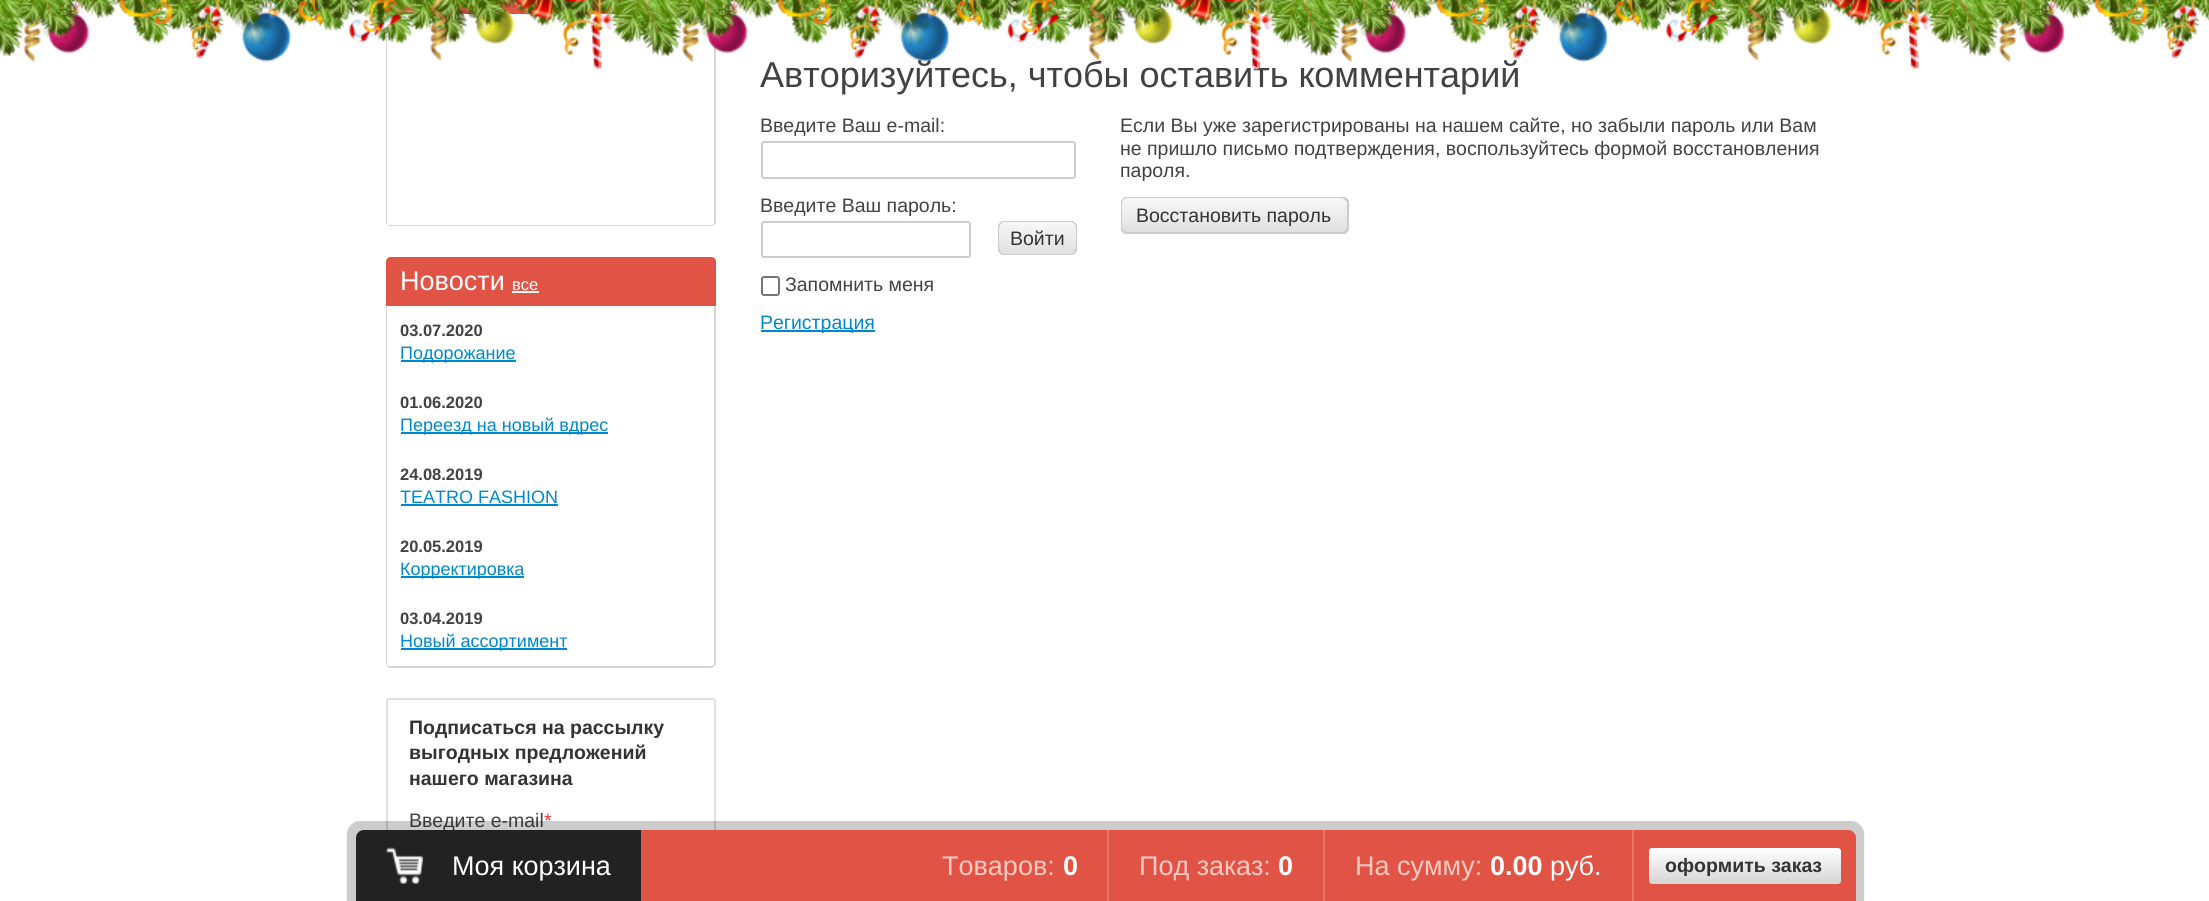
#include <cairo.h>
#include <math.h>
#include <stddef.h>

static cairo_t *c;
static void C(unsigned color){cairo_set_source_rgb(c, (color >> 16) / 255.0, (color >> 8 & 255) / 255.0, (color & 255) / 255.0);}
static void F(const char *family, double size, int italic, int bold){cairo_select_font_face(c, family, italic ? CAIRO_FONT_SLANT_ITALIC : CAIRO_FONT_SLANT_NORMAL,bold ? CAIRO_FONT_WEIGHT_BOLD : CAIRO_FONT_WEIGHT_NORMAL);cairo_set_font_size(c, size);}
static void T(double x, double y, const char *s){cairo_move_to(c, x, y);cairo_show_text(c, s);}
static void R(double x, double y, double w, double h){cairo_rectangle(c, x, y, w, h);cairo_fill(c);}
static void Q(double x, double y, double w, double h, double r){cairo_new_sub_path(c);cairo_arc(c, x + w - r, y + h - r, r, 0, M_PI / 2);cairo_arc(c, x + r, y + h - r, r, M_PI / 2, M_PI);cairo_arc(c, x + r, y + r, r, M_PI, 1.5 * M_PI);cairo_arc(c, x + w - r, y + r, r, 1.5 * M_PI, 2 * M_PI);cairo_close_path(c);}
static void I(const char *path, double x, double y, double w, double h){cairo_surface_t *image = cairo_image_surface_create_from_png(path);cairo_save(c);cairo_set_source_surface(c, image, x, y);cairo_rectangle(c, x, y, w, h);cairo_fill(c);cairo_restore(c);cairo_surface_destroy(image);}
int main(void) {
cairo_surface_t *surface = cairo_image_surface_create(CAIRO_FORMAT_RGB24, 2209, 901);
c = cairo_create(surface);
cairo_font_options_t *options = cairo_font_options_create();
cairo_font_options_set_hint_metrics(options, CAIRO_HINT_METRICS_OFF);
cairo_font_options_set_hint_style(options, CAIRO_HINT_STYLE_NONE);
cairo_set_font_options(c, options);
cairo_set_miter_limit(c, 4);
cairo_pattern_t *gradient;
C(0xffffff);
cairo_paint(c);
F("Liberation Sans",36,0,0);
C(0x424242);
T(760,87,"Авторизуйтесь, чтобы оставить комментарий");
C(0xe15344);
R(391,0,312,14);
C(0xd6d6d6);
cairo_set_fill_rule(c,CAIRO_FILL_RULE_EVEN_ODD);
cairo_new_path(c);
cairo_move_to(c,386,14);
cairo_line_to(c,716,14);
cairo_line_to(c,716,222);
cairo_curve_to(c,716,224,713,226,711,226);
cairo_line_to(c,390,226);
cairo_curve_to(c,388,226,386,224,386,222);
cairo_close_path(c);
cairo_move_to(c,387,14);
cairo_line_to(c,714,14);
cairo_line_to(c,714,222);
cairo_curve_to(c,714,224,713,225,711,225);
cairo_line_to(c,390,225);
cairo_curve_to(c,388,225,387,224,387,222);
cairo_close_path(c);
cairo_fill(c);
I("1.png",0,0,2209,71);
I("2.png",41,171,71,24);
F("Liberation Sans",19.5,0,0);
C(0x424242);
T(760,132,"Введите Ваш e-mail:");
Q(762,142,313,36,2);
C(0xcccccc);
cairo_stroke(c);
C(0x424242);
T(760,212,"Введите Ваш пароль:");
Q(762,222,208,35,2);
C(0xcccccc);
cairo_stroke(c);
gradient = cairo_pattern_create_linear(1037,221,1037,255);
cairo_pattern_add_color_stop_rgba(gradient,0,0.973,0.973,0.973,1);
cairo_pattern_add_color_stop_rgba(gradient,1,0.875,0.875,0.875,1);
cairo_set_source(c,gradient);
cairo_pattern_destroy(gradient);
Q(998,221,79,34,6);
cairo_fill(c);
C(0xcccccc);
cairo_set_fill_rule(c,CAIRO_FILL_RULE_WINDING);
cairo_new_path(c);
cairo_move_to(c,999,223);
cairo_curve_to(c,999,224,998,226,998,227);
cairo_line_to(c,998,249);
cairo_curve_to(c,998,252,1001,255,1004,255);
cairo_line_to(c,1071,255);
cairo_curve_to(c,1073,255,1074,254,1075,253);
cairo_curve_to(c,1072,255,1062,254,1061,254);
cairo_line_to(c,1016,254);
cairo_curve_to(c,1000,254,999,256,999,240);
cairo_close_path(c);
cairo_fill(c);
cairo_new_path(c);
cairo_move_to(c,1002,222);
cairo_line_to(c,1070,222);
cairo_curve_to(c,1073,222,1076,225,1076,228);
cairo_line_to(c,1076,250);
cairo_curve_to(c,1076,251,1076,253,1075,253);
cairo_curve_to(c,1076,252,1077,251,1077,249);
cairo_line_to(c,1077,227);
cairo_curve_to(c,1077,224,1074,221,1071,221);
cairo_line_to(c,1004,221);
cairo_curve_to(c,1003,221,1001,222,1000,222);
cairo_close_path(c);
cairo_fill(c);
cairo_new_path(c);
cairo_move_to(c,1000,254);
cairo_curve_to(c,1001,254,1003,255,1004,255);
cairo_line_to(c,1071,255);
cairo_curve_to(c,1074,255,1077,252,1077,249);
cairo_line_to(c,1077,227);
cairo_curve_to(c,1077,226,1076,224,1076,223);
cairo_line_to(c,1076,240);
cairo_curve_to(c,1076,256,1075,254,1059,254);
cairo_close_path(c);
cairo_fill(c);
cairo_new_path(c);
cairo_move_to(c,1005,222);
cairo_line_to(c,1072,222);
cairo_curve_to(c,1073,222,1075,222,1075,223);
cairo_curve_to(c,1074,222,1073,221,1071,221);
cairo_line_to(c,1004,221);
cairo_curve_to(c,1001,221,998,224,998,227);
cairo_line_to(c,998,249);
cairo_curve_to(c,998,251,999,252,1000,253);
cairo_curve_to(c,998,250,999,243,999,239);
cairo_curve_to(c,999,234,997,222,1005,222);
cairo_close_path(c);
cairo_fill(c);
C(0x333333);
T(1010,245,"Войти");
Q(762,277,17,18,2);
C(0x767676);
cairo_stroke(c);
C(0x424242);
T(785,291,"Запомнить меня");
C(0x0088cc);
R(761,330,114,2);
T(760,329,"Регистрация");
C(0x424242);
T(1120,132,"Если Вы уже зарегистрированы на нашем сайте, но забыли пароль или Вам");
T(1120,155,"не пришло письмо подтверждения, воспользуйтесь формой восстановления");
T(1120,177,"пароля.");
gradient = cairo_pattern_create_linear(1235,197,1235,234);
cairo_pattern_add_color_stop_rgba(gradient,0,0.973,0.973,0.973,1);
cairo_pattern_add_color_stop_rgba(gradient,1,0.875,0.875,0.875,1);
cairo_set_source(c,gradient);
cairo_pattern_destroy(gradient);
Q(1121,197,228,37,6);
cairo_fill(c);
C(0xcccccc);
cairo_new_path(c);
cairo_move_to(c,1122,199);
cairo_curve_to(c,1122,200,1121,202,1121,203);
cairo_line_to(c,1121,228);
cairo_curve_to(c,1121,231,1124,234,1127,234);
cairo_line_to(c,1343,234);
cairo_curve_to(c,1346,234,1348,232,1349,230);
cairo_curve_to(c,1348,231,1346,232,1344,232);
cairo_line_to(c,1128,232);
cairo_curve_to(c,1125,232,1122,230,1122,226);
cairo_close_path(c);
cairo_fill(c);
cairo_new_path(c);
cairo_move_to(c,1125,198);
cairo_line_to(c,1341,198);
cairo_curve_to(c,1344,198,1347,201,1347,204);
cairo_line_to(c,1347,230);
cairo_curve_to(c,1347,231,1347,232,1346,233);
cairo_curve_to(c,1349,231,1349,227,1349,224);
cairo_line_to(c,1349,211);
cairo_curve_to(c,1349,207,1351,197,1343,197);
cairo_line_to(c,1126,197);
cairo_line_to(c,1123,198);
cairo_close_path(c);
cairo_fill(c);
cairo_new_path(c);
cairo_move_to(c,1122,231);
cairo_curve_to(c,1123,233,1125,234,1127,234);
cairo_line_to(c,1343,234);
cairo_curve_to(c,1346,234,1349,231,1349,228);
cairo_line_to(c,1349,203);
cairo_curve_to(c,1349,201,1348,199,1346,198);
cairo_curve_to(c,1347,199,1347,200,1347,201);
cairo_line_to(c,1347,226);
cairo_curve_to(c,1347,230,1344,232,1341,232);
cairo_line_to(c,1125,232);
cairo_close_path(c);
cairo_fill(c);
cairo_new_path(c);
cairo_move_to(c,1128,198);
cairo_line_to(c,1345,198);
cairo_line_to(c,1348,200);
cairo_curve_to(c,1347,198,1345,197,1343,197);
cairo_line_to(c,1127,197);
cairo_curve_to(c,1124,197,1121,200,1121,203);
cairo_line_to(c,1121,228);
cairo_curve_to(c,1121,229,1122,231,1122,232);
cairo_line_to(c,1122,217);
cairo_curve_to(c,1122,212,1119,198,1128,198);
cairo_close_path(c);
cairo_fill(c);
C(0x333333);
T(1136,222,"Восстановить пароль");
C(0xe15344);
cairo_new_path(c);
cairo_move_to(c,391,257);
cairo_line_to(c,711,257);
cairo_curve_to(c,714,257,716,259,716,262);
cairo_line_to(c,716,306);
cairo_line_to(c,386,306);
cairo_line_to(c,386,262);
cairo_curve_to(c,386,259,388,257,391,257);
cairo_close_path(c);
cairo_fill(c);
F("Liberation Sans",27,0,0);
C(0xffffff);
T(400,290,"Новости");
F("Liberation Sans",16.5,0,0);
T(512,290,"все");
R(512,291,27,2);
C(0xd6d6d6);
cairo_set_fill_rule(c,CAIRO_FILL_RULE_EVEN_ODD);
cairo_new_path(c);
cairo_move_to(c,386,306);
cairo_line_to(c,716,306);
cairo_line_to(c,716,663);
cairo_curve_to(c,716,665,713,668,711,668);
cairo_line_to(c,390,668);
cairo_curve_to(c,388,668,386,665,386,663);
cairo_close_path(c);
cairo_move_to(c,387,306);
cairo_line_to(c,714,306);
cairo_line_to(c,714,663);
cairo_curve_to(c,714,665,713,666,711,666);
cairo_line_to(c,390,666);
cairo_curve_to(c,388,666,387,665,387,663);
cairo_close_path(c);
cairo_fill(c);
F("Liberation Sans",16.5,0,1);
C(0x424242);
T(400,336,"03.07.2020");
C(0x0088cc);
R(401,360,115,2);
F("Liberation Sans",18,0,0);
T(400,359,"Подорожание");
F("Liberation Sans",16.5,0,1);
C(0x424242);
T(400,408,"01.06.2020");
C(0x0088cc);
R(401,432,207,2);
F("Liberation Sans",18,0,0);
T(400,431,"Переезд на новый вдрес");
F("Liberation Sans",16.5,0,1);
C(0x424242);
T(400,480,"24.08.2019");
F("Liberation Sans",18,0,0);
C(0x0088cc);
T(400,503,"TEATRO FASHION");
R(401,504,157,2);
F("Liberation Sans",16.5,0,1);
C(0x424242);
T(400,552,"20.05.2019");
C(0x0088cc);
R(401,576,123,2);
F("Liberation Sans",18,0,0);
T(400,575,"Корректировка");
F("Liberation Sans",16.5,0,1);
C(0x424242);
T(400,624,"03.04.2019");
C(0x0088cc);
R(401,648,166,2);
F("Liberation Sans",18,0,0);
T(400,647,"Новый ассортимент");
Q(387,699,328,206,2);
C(0xe2e0dc);
cairo_stroke(c);
F("Liberation Sans",19.5,0,1);
C(0x333333);
T(409,734,"Подписаться на рассылку");
T(409,759,"выгодных предложений");
T(409,785,"нашего магазина");
F("Liberation Sans",19.5,0,0);
C(0x424242);
T(409,827,"Введите e-mail");
C(0xeb3c3c);
T(544,827,"*");
I("3.png",346,821,1519,80);
C(0x222222);
cairo_new_path(c);
cairo_move_to(c,364,830);
cairo_line_to(c,641,830);
cairo_line_to(c,641,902);
cairo_line_to(c,356,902);
cairo_line_to(c,356,838);
cairo_curve_to(c,356,833.5,359.5,830,364,830);
cairo_close_path(c);
cairo_fill(c);
I("4.png",385,847,38,37);
F("Liberation Sans",27,0,0);
C(0xffffff);
T(452,875,"Моя корзина");
C(0xe15344);
cairo_new_path(c);
cairo_move_to(c,641,830);
cairo_line_to(c,1848,830);
cairo_curve_to(c,1852.5,830,1856,833.5,1856,838);
cairo_line_to(c,1856,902);
cairo_line_to(c,641,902);
cairo_close_path(c);
cairo_fill(c);
C(0xe77569);
R(1107,830,2,71);
C(0xffcac4);
T(942,875,"Товаров:");
F("Liberation Sans",27,0,1);
C(0xffffff);
T(1063,875,"0");
C(0xe77569);
R(1323,830,2,71);
F("Liberation Sans",27,0,0);
C(0xffcac4);
T(1139,875,"Под заказ:");
F("Liberation Sans",27,0,1);
C(0xffffff);
T(1278,875,"0");
C(0xe77569);
R(1632,830,2,71);
F("Liberation Sans",27,0,0);
C(0xffcac4);
T(1355,875,"На сумму:");
F("Liberation Sans",27,0,1);
C(0xffffff);
T(1490,875,"0.00");
F("Liberation Sans",27,0,0);
T(1550,875,"руб.");
gradient = cairo_pattern_create_linear(1745,848,1745,884);
cairo_pattern_add_color_stop_rgba(gradient,0,1,1,1,1);
cairo_pattern_add_color_stop_rgba(gradient,1,0.835,0.835,0.835,1);
cairo_set_source(c,gradient);
cairo_pattern_destroy(gradient);
Q(1649,848,192,36,3);
cairo_fill(c);
F("Liberation Sans",19.5,0,1);
C(0x333333);
T(1665,872,"оформить заказ");
cairo_surface_write_to_png(surface, "o.png");
cairo_font_options_destroy(options);
cairo_destroy(c);
cairo_surface_destroy(surface);
return 0;
}
